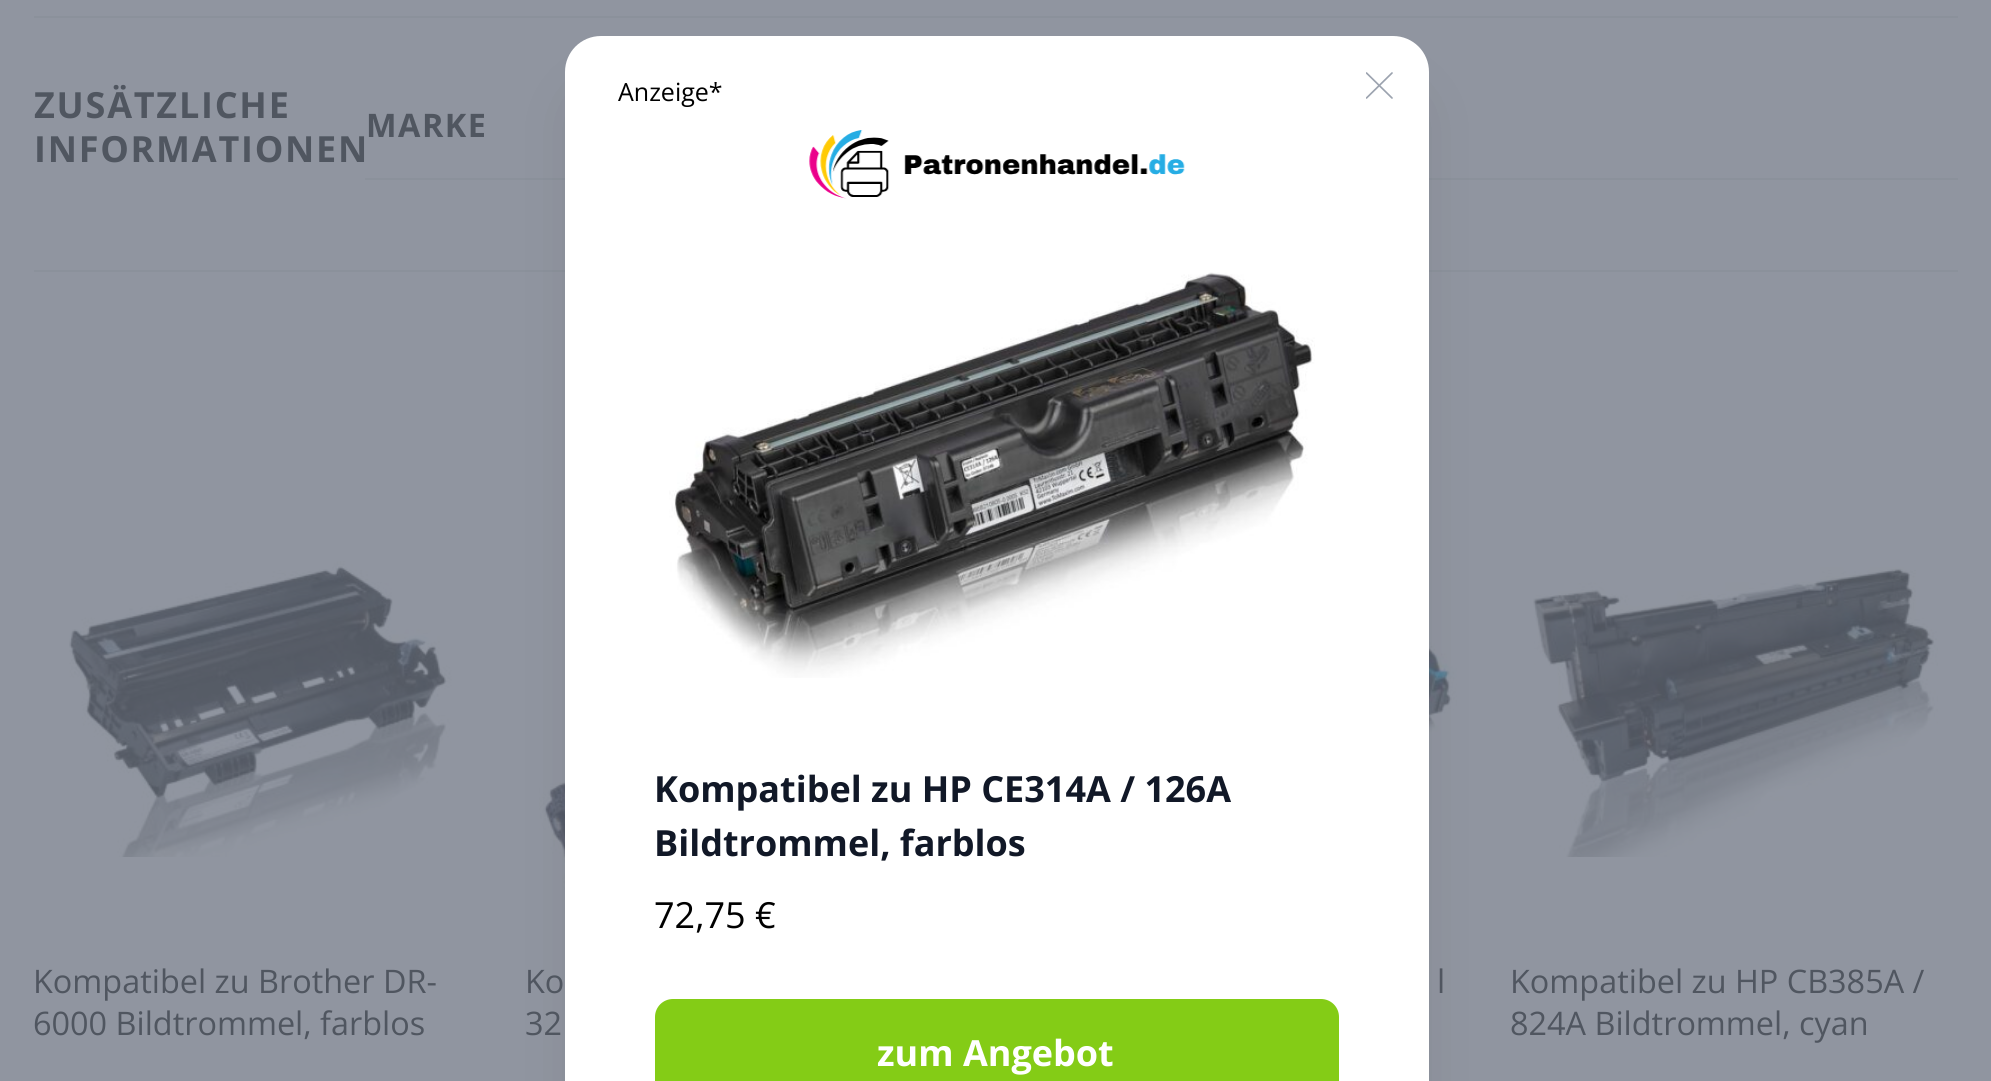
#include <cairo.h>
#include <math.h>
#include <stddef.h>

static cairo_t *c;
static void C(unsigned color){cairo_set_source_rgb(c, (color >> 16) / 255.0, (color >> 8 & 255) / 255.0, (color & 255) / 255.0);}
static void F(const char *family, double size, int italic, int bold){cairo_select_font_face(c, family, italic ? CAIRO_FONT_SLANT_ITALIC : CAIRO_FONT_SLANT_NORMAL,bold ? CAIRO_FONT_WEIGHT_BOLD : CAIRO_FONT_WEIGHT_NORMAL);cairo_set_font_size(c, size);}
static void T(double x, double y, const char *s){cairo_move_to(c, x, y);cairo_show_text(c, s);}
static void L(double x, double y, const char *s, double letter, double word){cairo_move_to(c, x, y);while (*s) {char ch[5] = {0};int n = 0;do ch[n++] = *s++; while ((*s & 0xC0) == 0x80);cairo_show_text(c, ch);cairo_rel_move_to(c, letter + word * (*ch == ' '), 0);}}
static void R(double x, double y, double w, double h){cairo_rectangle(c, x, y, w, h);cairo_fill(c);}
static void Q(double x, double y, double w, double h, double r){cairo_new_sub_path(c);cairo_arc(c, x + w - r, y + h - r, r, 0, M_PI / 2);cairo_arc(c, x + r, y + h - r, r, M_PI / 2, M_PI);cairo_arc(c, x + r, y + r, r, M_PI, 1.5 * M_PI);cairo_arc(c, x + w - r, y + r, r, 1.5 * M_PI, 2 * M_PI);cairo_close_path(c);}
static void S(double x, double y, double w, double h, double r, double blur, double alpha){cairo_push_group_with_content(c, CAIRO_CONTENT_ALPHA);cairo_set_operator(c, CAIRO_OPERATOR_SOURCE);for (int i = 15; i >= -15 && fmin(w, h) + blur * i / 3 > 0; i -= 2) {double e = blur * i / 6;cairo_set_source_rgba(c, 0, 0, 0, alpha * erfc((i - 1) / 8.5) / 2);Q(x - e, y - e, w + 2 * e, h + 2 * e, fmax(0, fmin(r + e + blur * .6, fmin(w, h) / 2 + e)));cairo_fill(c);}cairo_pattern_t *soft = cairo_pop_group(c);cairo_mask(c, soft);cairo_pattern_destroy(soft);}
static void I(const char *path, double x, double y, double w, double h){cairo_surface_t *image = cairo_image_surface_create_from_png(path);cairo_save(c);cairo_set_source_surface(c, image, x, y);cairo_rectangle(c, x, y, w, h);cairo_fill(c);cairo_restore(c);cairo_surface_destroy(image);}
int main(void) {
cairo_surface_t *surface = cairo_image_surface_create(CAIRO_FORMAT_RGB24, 1991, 1081);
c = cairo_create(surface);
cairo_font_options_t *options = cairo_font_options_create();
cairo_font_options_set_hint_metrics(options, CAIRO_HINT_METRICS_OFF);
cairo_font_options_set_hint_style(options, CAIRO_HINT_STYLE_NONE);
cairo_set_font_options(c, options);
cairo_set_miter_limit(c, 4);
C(0x9095a0);
cairo_paint(c);
C(0x8b919b);
R(34,16,1924,2);
R(365,178,200,2);
R(1429,178,529,2);
R(34,270,1924,2);
I("4.png",539,674,26,257);
I("5.png",1429,558,28,279);
C(0x000000);
S(576,92,842,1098,25,28,.1);
C(0xffffff);
cairo_new_path(c);
cairo_move_to(c,601,36);
cairo_line_to(c,1393,36);
cairo_curve_to(c,1413,36,1429,52,1429,72);
cairo_line_to(c,1429,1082);
cairo_line_to(c,565,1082);
cairo_line_to(c,565,72);
cairo_curve_to(c,565,52,581,36,601,36);
cairo_close_path(c);
cairo_fill(c);
F("Open Sans",25,0,0);
C(0x000000);
T(618,101,"Anzeige*");
cairo_save(c);
cairo_rectangle(c,1366,72,27,27);
cairo_clip(c);
cairo_new_path(c);
cairo_move_to(c,1366.5,98);
cairo_line_to(c,1392,73);
cairo_move_to(c,1366.5,73);
cairo_line_to(c,1392,98);
C(0x9ca3af);
cairo_set_line_width(c,1.7);
cairo_set_line_cap(c,CAIRO_LINE_CAP_ROUND);
cairo_set_line_join(c,CAIRO_LINE_JOIN_ROUND);
cairo_stroke(c);
cairo_restore(c);
I("1.png",809,130,376,69);
I("2.png",669,272,646,406);
F("Open Sans",36,0,1);
C(0x111827);
T(654,802,"Kompatibel zu HP CE314A / 126A");
T(654,856,"Bildtrommel, farblos");
F("Open Sans",36,0,0);
C(0x000000);
T(654,928,"72,75 €");
C(0x84cc16);
cairo_new_path(c);
cairo_move_to(c,673,999);
cairo_line_to(c,1321,999);
cairo_curve_to(c,1331,999,1339,1007,1339,1017);
cairo_line_to(c,1339,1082);
cairo_line_to(c,655,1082);
cairo_line_to(c,655,1017);
cairo_curve_to(c,655,1007,663,999,673,999);
cairo_close_path(c);
cairo_fill(c);
F("Open Sans",36,0,1);
C(0xffffff);
T(877,1066,"zum Angebot");
C(0x505660);
L(34,118,"ZUSÄTZLICHE",1.75,0);
L(34,162,"INFORMATIONEN",1.75,0);
F("Open Sans",32.4,0,1);
L(366,137,"MARKE",1.5,0);
I("3.png",69,561,383,296);
F("Open Sans",32.4,0,0);
T(33,993,"Kompatibel zu Brother DR-");
T(33,1035,"6000 Bildtrommel, farblos");
T(525,993,"Ko");
T(525,1035,"32");
T(1437,993,"l");
I("6.png",1533,567,405,290);
T(1510,993,"Kompatibel zu HP CB385A /");
T(1510,1035,"824A Bildtrommel, cyan");
cairo_surface_write_to_png(surface, "o.png");
cairo_font_options_destroy(options);
cairo_destroy(c);
cairo_surface_destroy(surface);
return 0;
}
